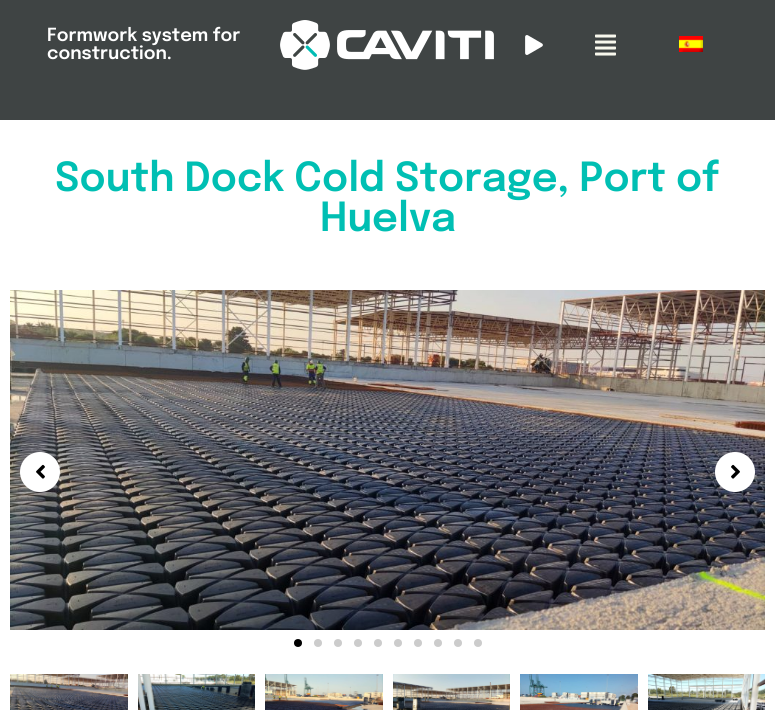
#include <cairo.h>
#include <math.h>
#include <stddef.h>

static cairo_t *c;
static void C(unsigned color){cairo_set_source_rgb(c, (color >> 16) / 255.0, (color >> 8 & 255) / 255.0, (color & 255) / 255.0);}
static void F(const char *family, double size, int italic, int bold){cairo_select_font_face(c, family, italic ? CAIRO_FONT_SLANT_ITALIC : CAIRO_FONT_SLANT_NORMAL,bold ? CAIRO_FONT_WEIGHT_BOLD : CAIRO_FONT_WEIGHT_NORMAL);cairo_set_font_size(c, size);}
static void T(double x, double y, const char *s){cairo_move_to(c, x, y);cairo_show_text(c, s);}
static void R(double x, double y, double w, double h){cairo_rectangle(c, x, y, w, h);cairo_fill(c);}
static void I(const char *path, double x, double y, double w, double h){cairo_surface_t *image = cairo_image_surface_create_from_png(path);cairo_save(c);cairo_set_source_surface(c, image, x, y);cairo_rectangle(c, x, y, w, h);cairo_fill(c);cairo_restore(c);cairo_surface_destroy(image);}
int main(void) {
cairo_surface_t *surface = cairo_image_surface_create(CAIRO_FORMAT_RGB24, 775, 710);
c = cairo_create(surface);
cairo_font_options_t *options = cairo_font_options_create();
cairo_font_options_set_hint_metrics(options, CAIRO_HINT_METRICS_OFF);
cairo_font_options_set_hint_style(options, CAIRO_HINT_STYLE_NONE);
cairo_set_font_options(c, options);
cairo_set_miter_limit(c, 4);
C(0x3f4444);
cairo_paint(c);
F("Epilogue SemiBold",18,0,0);
C(0xffffff);
T(47,41,"Formwork system for");
T(47,59,"construction.");
I("1.png",280,20,214,50);
I("2.png",525,35,18,20);
I("3.png",595,34,21,22);
I("4.png",679,36,24,16);
R(0,120,775,590);
F("Epilogue SemiBold",40,0,0);
C(0x00bfb3);
T(55,191,"South Dock Cold Storage, Port of");
T(320,231,"Huelva");
I("5.png",10,290,755,340);
C(0xffffff);
cairo_arc(c,40,472,20,0,2 * M_PI);
cairo_fill(c);
I("6.png",36,464,9,15);
cairo_arc(c,735,472,20,0,2 * M_PI);
cairo_fill(c);
I("7.png",731,464,9,15);
C(0x000000);
cairo_arc(c,298,643,4,0,2 * M_PI);
cairo_fill(c);
C(0xcccccc);
cairo_arc(c,318,643,4,0,2 * M_PI);
cairo_fill(c);
cairo_arc(c,338,643,4,0,2 * M_PI);
cairo_fill(c);
cairo_arc(c,358,643,4,0,2 * M_PI);
cairo_fill(c);
cairo_arc(c,378,643,4,0,2 * M_PI);
cairo_fill(c);
cairo_arc(c,398,643,4,0,2 * M_PI);
cairo_fill(c);
cairo_arc(c,418,643,4,0,2 * M_PI);
cairo_fill(c);
cairo_arc(c,438,643,4,0,2 * M_PI);
cairo_fill(c);
cairo_arc(c,458,643,4,0,2 * M_PI);
cairo_fill(c);
cairo_arc(c,478,643,4,0,2 * M_PI);
cairo_fill(c);
I("8.png",10,674,118,36);
I("9.png",138,674,117,36);
I("10.png",265,674,118,36);
I("11.png",393,674,117,36);
I("12.png",520,674,118,36);
I("13.png",648,674,117,36);
cairo_surface_write_to_png(surface, "o.png");
cairo_font_options_destroy(options);
cairo_destroy(c);
cairo_surface_destroy(surface);
return 0;
}
